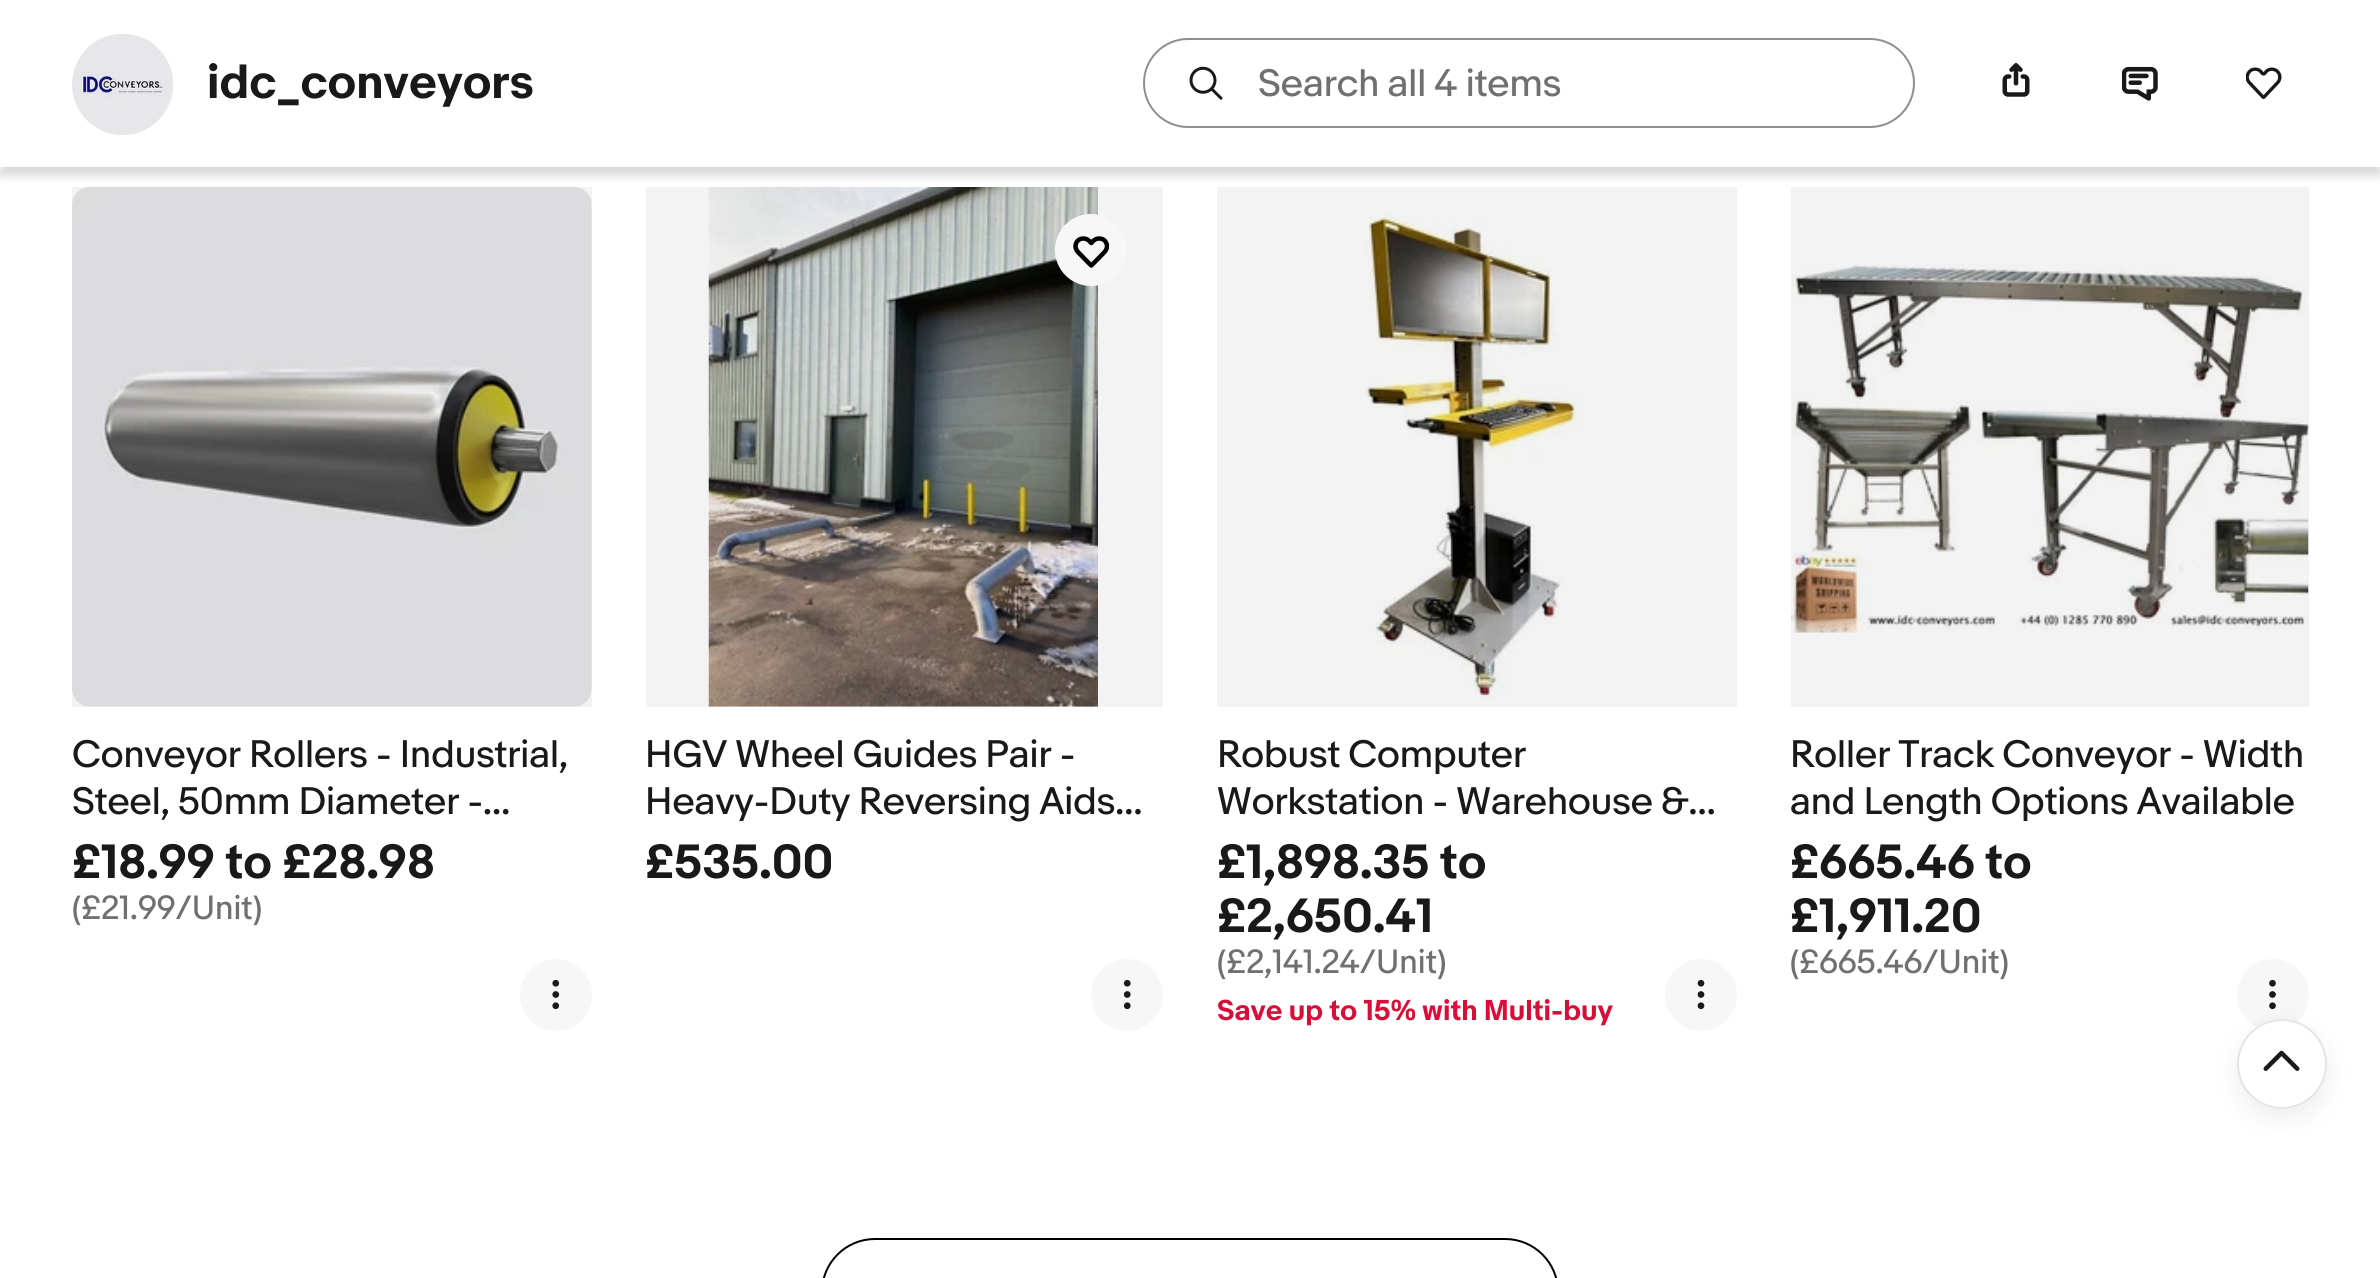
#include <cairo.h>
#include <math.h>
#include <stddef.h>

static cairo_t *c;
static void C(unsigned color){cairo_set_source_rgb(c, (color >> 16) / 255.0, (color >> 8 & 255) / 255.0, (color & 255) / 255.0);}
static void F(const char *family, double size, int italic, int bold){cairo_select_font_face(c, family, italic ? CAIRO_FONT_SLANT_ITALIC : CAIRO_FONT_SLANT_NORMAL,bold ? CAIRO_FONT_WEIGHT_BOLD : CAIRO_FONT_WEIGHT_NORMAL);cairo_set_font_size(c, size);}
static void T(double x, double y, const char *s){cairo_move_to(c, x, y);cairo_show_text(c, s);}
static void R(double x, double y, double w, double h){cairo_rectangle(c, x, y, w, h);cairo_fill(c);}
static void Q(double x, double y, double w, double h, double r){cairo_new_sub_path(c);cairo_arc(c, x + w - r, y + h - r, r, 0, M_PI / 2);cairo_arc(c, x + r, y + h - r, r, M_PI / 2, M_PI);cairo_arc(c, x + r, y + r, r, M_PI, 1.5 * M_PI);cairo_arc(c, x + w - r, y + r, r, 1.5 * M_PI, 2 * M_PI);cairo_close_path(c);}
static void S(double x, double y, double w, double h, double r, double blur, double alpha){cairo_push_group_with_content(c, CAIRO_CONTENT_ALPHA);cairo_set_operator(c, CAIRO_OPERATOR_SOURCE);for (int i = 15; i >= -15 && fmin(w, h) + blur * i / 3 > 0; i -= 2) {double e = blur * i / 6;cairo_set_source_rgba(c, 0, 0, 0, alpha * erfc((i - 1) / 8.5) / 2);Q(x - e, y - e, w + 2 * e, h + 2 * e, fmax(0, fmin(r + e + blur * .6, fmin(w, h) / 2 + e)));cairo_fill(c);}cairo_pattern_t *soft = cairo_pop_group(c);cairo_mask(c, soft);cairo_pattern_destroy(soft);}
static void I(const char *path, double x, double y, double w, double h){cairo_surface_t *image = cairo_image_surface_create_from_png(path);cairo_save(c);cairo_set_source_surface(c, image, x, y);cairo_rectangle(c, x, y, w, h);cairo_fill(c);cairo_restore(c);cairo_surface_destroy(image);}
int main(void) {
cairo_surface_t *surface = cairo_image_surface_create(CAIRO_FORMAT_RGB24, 2380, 1278);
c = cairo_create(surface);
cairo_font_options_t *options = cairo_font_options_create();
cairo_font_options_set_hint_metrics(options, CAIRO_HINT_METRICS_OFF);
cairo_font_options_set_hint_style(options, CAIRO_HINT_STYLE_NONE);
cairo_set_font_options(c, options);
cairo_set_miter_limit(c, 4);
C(0xffffff);
cairo_paint(c);
I("6.png",72,187,520,520);
cairo_set_source_rgba(c,0,0,0,0.05);
R(72,187,520,520);
I("9.png",708,187,390,520);
R(646,187,517,520);
I("11.png",1364,214,220,486);
R(1217,187,520,520);
I("13.png",1791,264,518,369);
R(1791,187,518,520);
C(0x000000);
S(0,9,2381,167,0,4.5,.15);
C(0xffffff);
R(0,2,2380,165);
I("1.png",72,34,101,101);
F("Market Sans",45,0,1);
C(0x191919);
T(207,98,"idc_conveyors");
Q(1144,39,770,88,44);
C(0x8f8f8f);
cairo_stroke(c);
I("2.png",1189,66,34,34);
F("Market Sans",36,0,0);
C(0x707070);
T(1258,96,"Search all 4 items");
I("3.png",2002,63,28,34);
I("4.png",2122,66,36,35);
I("5.png",2246,67,36,32);
C(0x191919);
T(72,767,"Conveyor Rollers - Industrial,");
T(72,814,"Steel, 50mm Diameter -…");
F("Market Sans",45,0,1);
T(72,878,"£18.99 to £28.98");
F("Market Sans",31.5,0,0);
C(0x707070);
T(72,919,"(£21.99/Unit)");
C(0xf7f7f7);
cairo_new_path(c);
cairo_arc(c,556,995,36,0,2 * M_PI);
cairo_fill(c);
I("7.png",552,979,8,31);
cairo_arc(c,1091,250,36,0,2 * M_PI);
cairo_fill(c);
I("8.png",1073,236,36,32);
F("Market Sans",36,0,0);
C(0x191919);
T(645,767,"HGV Wheel Guides Pair -");
T(645,814,"Heavy-Duty Reversing Aids…");
F("Market Sans",45,0,1);
T(645,878,"£535.00");
C(0xf7f7f7);
cairo_new_path(c);
cairo_arc(c,1127,995,36,0,2 * M_PI);
cairo_fill(c);
I("10.png",1123,979,8,31);
F("Market Sans",36,0,0);
C(0x191919);
T(1217,767,"Robust Computer");
T(1217,814,"Workstation - Warehouse &…");
F("Market Sans",45,0,1);
T(1217,878,"£1,898.35 to");
T(1217,932,"£2,650.41");
F("Market Sans",31.5,0,0);
C(0x707070);
T(1217,973,"(£2,141.24/Unit)");
F("Market Sans",27,0,1);
C(0xd70f38);
T(1217,1020,"Save up to 15% with Multi-buy");
C(0xf7f7f7);
cairo_new_path(c);
cairo_arc(c,1701,995,36,0,2 * M_PI);
cairo_fill(c);
I("12.png",1697,979,8,31);
F("Market Sans",36,0,0);
C(0x191919);
T(1790,767,"Roller Track Conveyor - Width");
T(1790,814,"and Length Options Available");
F("Market Sans",45,0,1);
T(1790,878,"£665.46 to");
T(1790,932,"£1,911.20");
F("Market Sans",31.5,0,0);
C(0x707070);
T(1790,973,"(£665.46/Unit)");
C(0xf7f7f7);
cairo_new_path(c);
cairo_arc(c,2273,995,36,0,2 * M_PI);
cairo_fill(c);
I("14.png",2269,979,7,31);
Q(822,1239,736,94,53);
C(0x000000);
cairo_stroke(c);
C(0x000000);
S(2237,1028,90,90,45,13.5,.07);
C(0xffffff);
cairo_arc(c,2282,1064,44,0,2 * M_PI);
cairo_fill_preserve(c);
C(0xe5e5e5);
cairo_stroke(c);
I("15.png",2263,1050,37,21);
cairo_surface_write_to_png(surface, "o.png");
cairo_font_options_destroy(options);
cairo_destroy(c);
cairo_surface_destroy(surface);
return 0;
}
